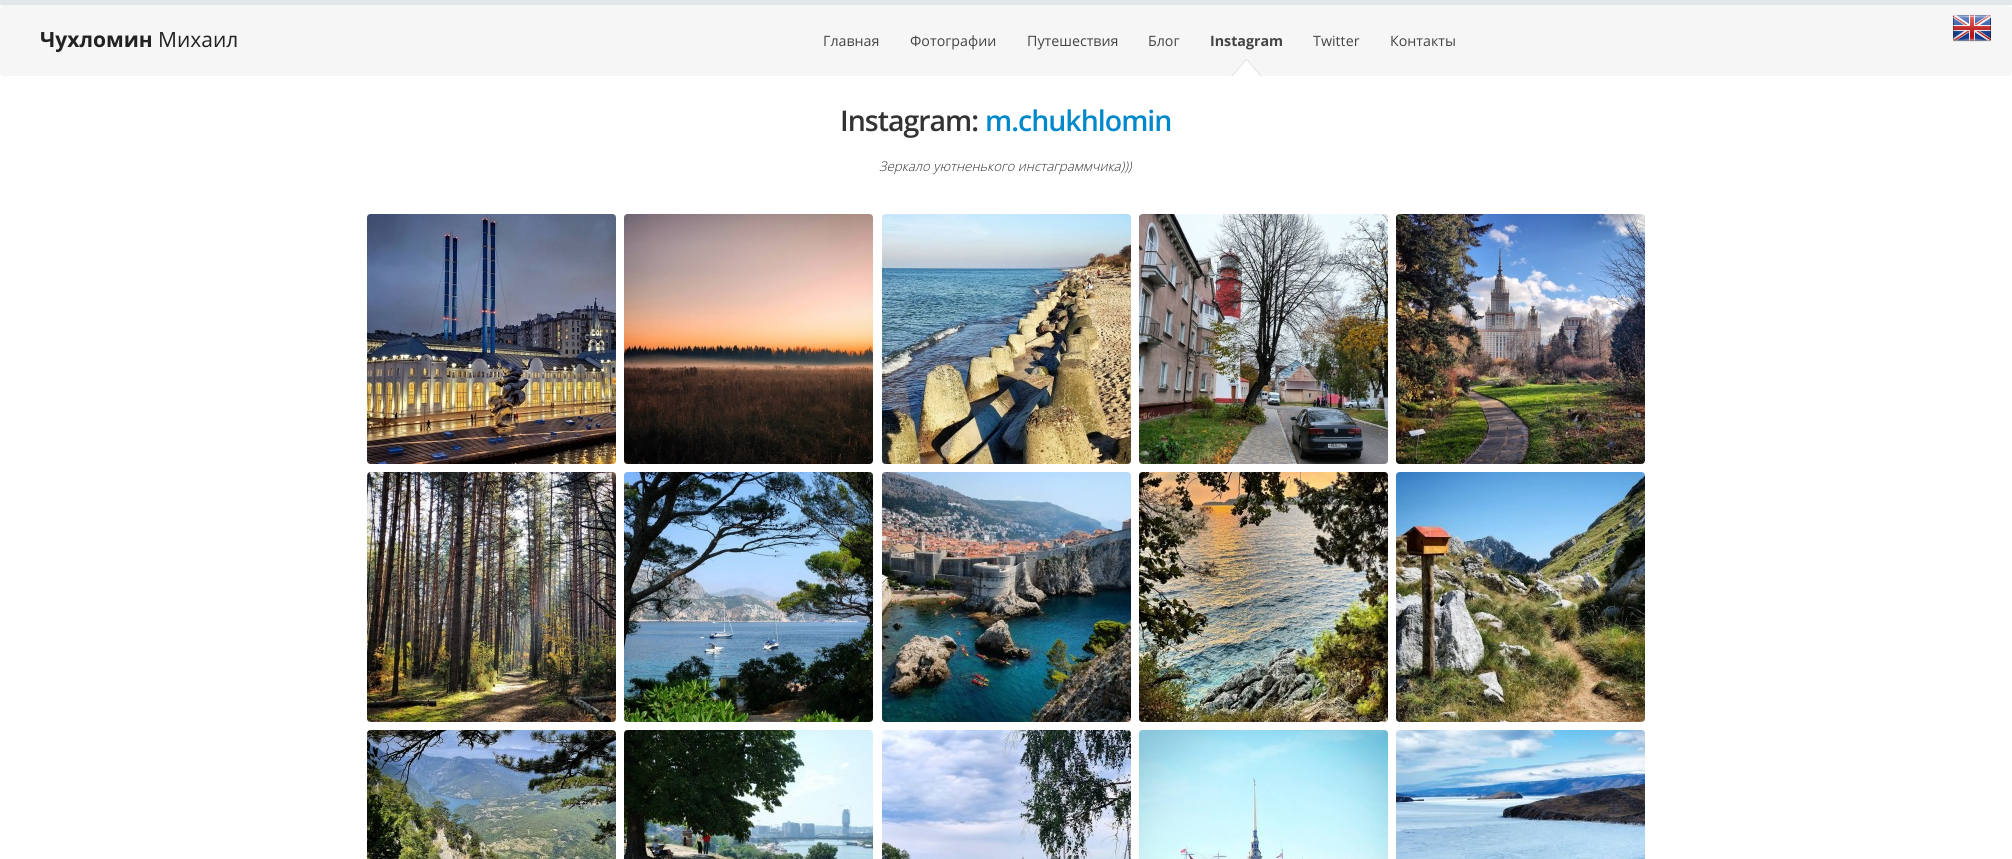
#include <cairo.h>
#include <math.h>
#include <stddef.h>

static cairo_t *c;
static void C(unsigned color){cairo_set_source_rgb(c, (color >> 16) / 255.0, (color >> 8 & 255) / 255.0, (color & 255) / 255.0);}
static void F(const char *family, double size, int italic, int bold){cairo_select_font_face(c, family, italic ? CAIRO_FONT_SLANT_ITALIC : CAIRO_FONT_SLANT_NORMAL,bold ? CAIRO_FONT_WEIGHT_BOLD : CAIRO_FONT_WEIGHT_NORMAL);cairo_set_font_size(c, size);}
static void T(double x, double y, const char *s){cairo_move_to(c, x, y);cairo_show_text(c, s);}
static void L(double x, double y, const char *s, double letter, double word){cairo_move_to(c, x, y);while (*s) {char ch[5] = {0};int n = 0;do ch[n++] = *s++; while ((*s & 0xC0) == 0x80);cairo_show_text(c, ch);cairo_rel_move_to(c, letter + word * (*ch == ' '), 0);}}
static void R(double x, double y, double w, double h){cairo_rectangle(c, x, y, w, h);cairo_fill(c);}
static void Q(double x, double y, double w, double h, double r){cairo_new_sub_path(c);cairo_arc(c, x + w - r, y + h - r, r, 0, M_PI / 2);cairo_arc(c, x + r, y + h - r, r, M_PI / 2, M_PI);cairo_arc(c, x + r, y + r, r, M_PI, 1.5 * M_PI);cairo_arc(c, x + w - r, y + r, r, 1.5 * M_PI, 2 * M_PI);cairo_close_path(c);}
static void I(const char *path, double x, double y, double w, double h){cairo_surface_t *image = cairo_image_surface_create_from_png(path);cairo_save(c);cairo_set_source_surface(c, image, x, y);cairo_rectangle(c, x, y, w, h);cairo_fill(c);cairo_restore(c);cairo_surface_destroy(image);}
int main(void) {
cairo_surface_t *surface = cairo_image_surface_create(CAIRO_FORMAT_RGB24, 2012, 859);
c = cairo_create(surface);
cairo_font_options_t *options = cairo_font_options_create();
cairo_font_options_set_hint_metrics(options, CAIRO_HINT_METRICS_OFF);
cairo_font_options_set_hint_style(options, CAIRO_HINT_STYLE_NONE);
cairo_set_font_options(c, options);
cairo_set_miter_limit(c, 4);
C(0xffffff);
cairo_paint(c);
C(0xe0e8ea);
R(0,0,2012,5);
C(0xf6f6f6);
Q(0,5,2012,71,4);
cairo_fill(c);
F("Open Sans",21,0,1);
C(0x222222);
T(40,47,"Чухломин");
F("Open Sans",21,0,0);
T(158,47,"Михаил");
F("Open Sans",14.25,0,0);
C(0x444444);
T(823,46,"Главная");
T(910,46,"Фотографии");
T(1027,46,"Путешествия");
T(1148,46,"Блог");
I("1.png",1231,59,31,17);
F("Open Sans",14.25,0,1);
T(1210,46,"Instagram");
F("Open Sans",14.25,0,0);
T(1313,46,"Twitter");
T(1390,46,"Контакты");
I("2.png",1953,15,38,27);
F("Open Sans SemiBold",28.5,0,0);
C(0x333333);
L(840,131,"Instagram:",-1,0);
C(0x0088cc);
L(985,131,"m.chukhlomin",-1,0);
F("Open Sans Light",13.3,1,0);
C(0x333333);
T(879,171,"Зеркало уютненького инстаграммчика)))");
I("3.png",367,214,249,250);
I("4.png",624,214,249,250);
I("5.png",882,214,249,250);
I("6.png",1139,214,249,250);
I("7.png",1396,214,249,250);
I("8.png",367,472,249,250);
I("9.png",624,472,249,250);
I("10.png",882,472,249,250);
I("11.png",1139,472,249,250);
I("12.png",1396,472,249,250);
I("13.png",367,730,249,129);
I("14.png",624,730,249,129);
I("15.png",882,730,249,129);
I("16.png",1139,730,249,129);
I("17.png",1396,730,249,129);
cairo_surface_write_to_png(surface, "o.png");
cairo_font_options_destroy(options);
cairo_destroy(c);
cairo_surface_destroy(surface);
return 0;
}
